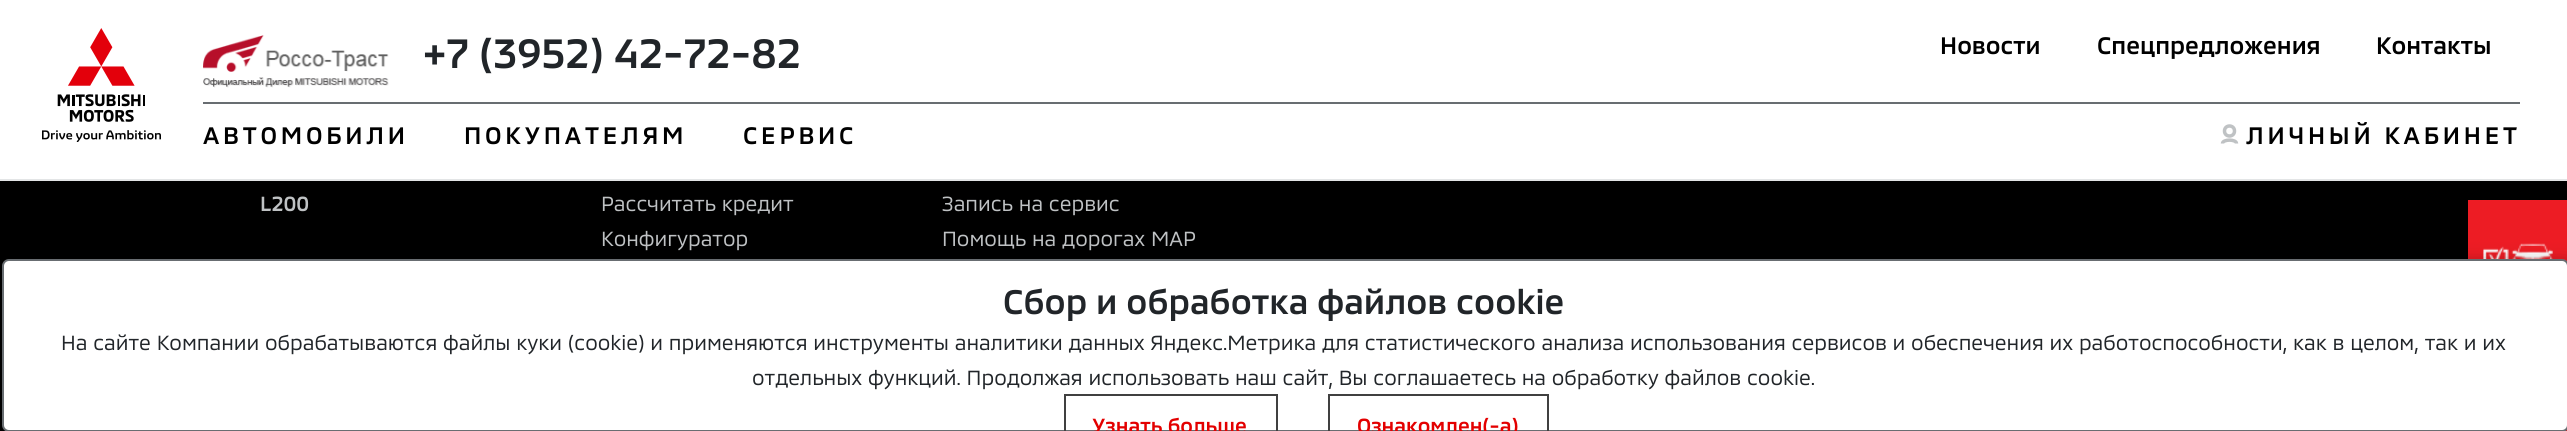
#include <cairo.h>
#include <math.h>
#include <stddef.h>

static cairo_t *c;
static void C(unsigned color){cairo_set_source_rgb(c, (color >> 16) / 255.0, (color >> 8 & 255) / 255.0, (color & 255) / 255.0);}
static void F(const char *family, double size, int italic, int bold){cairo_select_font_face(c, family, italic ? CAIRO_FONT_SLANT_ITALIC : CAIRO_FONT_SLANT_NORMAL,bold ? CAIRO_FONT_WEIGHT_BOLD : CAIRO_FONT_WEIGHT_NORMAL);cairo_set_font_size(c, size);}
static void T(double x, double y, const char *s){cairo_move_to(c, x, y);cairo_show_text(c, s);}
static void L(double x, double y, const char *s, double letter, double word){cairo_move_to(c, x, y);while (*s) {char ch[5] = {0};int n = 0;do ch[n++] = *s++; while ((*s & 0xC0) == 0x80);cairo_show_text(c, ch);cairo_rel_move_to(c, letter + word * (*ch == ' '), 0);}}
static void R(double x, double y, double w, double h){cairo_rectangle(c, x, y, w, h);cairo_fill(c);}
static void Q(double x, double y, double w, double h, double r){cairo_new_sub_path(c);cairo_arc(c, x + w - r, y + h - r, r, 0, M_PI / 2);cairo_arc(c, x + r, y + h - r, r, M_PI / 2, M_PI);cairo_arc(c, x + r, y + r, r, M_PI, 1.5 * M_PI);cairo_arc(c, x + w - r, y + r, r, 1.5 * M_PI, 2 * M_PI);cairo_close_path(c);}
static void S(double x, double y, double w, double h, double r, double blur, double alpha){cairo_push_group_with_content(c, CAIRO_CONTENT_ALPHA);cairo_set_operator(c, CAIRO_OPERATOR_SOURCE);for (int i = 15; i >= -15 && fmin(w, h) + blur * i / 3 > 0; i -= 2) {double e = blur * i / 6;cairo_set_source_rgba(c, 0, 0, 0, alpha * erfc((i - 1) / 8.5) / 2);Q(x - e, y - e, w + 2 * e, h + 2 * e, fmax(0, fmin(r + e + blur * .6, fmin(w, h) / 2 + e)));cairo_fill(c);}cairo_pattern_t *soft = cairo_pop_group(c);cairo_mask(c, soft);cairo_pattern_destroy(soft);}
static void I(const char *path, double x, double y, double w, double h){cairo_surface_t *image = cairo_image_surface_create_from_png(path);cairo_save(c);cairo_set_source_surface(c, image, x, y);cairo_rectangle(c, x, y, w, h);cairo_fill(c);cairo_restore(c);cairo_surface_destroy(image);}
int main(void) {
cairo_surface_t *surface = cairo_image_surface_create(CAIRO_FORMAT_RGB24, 2567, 431);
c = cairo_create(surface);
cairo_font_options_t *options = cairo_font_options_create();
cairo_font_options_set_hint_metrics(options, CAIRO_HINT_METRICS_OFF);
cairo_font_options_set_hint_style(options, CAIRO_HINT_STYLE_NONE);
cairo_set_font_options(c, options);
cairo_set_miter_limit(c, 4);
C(0x000000);
cairo_paint(c);
C(0xffffff);
R(0,0,2567,179);
C(0xe3e5e6);
R(0,179,2567,2);
I("1.png",42,28,119,114);
C(0x686d71);
R(203,102,2317,2);
I("2.png",203,35,186,53);
F("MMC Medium",42,0,0);
C(0x212529);
T(423,68,"+7 (3952) 42-72-82");
F("MMC Medium",24.5,0,0);
C(0x000000);
T(1940,54,"Новости");
T(2097,54,"Спецпредложения");
T(2376,54,"Контакты");
L(203,144,"АВТОМОБИЛИ",3.75,0);
L(464,144,"ПОКУПАТЕЛЯМ",3.75,0);
L(743,144,"СЕРВИС",3.75,0);
L(2246,144,"ЛИЧНЫЙ КАБИНЕТ",3.75,0);
cairo_new_path(c);
cairo_arc(c,2229.5,131,5,0,2 * M_PI);
C(0xbfc2c4);
cairo_set_line_width(c,3.5);
cairo_stroke(c);
cairo_new_path(c);
cairo_move_to(c,2236.5,143.5);
cairo_curve_to(c,2236.5,139,2222.5,139,2222.5,143.5);
cairo_stroke(c);
F("MMC Medium",21,0,0);
T(260,211,"L200");
F("MMC",21,0,0);
T(601,211,"Рассчитать кредит");
T(601,246,"Конфигуратор");
T(942,211,"Запись на сервис");
T(942,246,"Помощь на дорогах MAP");
C(0xed1c24);
R(2468,200,99,61);
I("3.png",2483,243,70,16);
R(2565,430,2,1);
cairo_save(c);
cairo_set_fill_rule(c,CAIRO_FILL_RULE_EVEN_ODD);
cairo_new_path(c);
cairo_move_to(c,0,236);
cairo_line_to(c,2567,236);
cairo_line_to(c,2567,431);
cairo_line_to(c,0,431);
cairo_close_path(c);
cairo_move_to(c,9,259);
cairo_line_to(c,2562,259);
cairo_curve_to(c,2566,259,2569,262,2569,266);
cairo_line_to(c,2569,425);
cairo_curve_to(c,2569,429,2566,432,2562,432);
cairo_line_to(c,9,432);
cairo_curve_to(c,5,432,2,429,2,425);
cairo_line_to(c,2,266);
cairo_curve_to(c,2,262,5,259,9,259);
cairo_close_path(c);
cairo_clip(c);
C(0x000000);
S(5,264,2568,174,7,9,.4);
cairo_restore(c);
C(0xffffff);
Q(3,260,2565,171,6);
cairo_fill_preserve(c);
C(0x686d71);
cairo_set_line_width(c,2);
cairo_stroke(c);
F("MMC Medium",35,0,0);
C(0x212529);
T(1003,314,"Сбор и обработка файлов cookie");
F("MMC",21,0,0);
T(61,350,"На сайте Компании обрабатываются файлы куки (cookie) и применяются инструменты аналитики данных Яндекс.Метрика для статистического анализа использования сервисов и обеспечения их работоспособности, как в целом, так и их");
T(752,385,"отдельных функций. Продолжая использовать наш сайт, Вы соглашаетесь на обработку файлов cookie.");
C(0x404040);
cairo_new_path(c);
cairo_move_to(c,1064,394);
cairo_line_to(c,1064,431);
cairo_line_to(c,1066,431);
cairo_line_to(c,1066,396);
cairo_line_to(c,1276,396);
cairo_line_to(c,1276,431);
cairo_line_to(c,1278,431);
cairo_line_to(c,1278,394);
cairo_close_path(c);
cairo_fill(c);
F("MMC Medium",21,0,0);
C(0xe30000);
T(1092,433,"Узнать больше");
C(0x404040);
cairo_new_path(c);
cairo_move_to(c,1328,394);
cairo_line_to(c,1328,431);
cairo_line_to(c,1330,431);
cairo_line_to(c,1330,396);
cairo_line_to(c,1547,396);
cairo_line_to(c,1547,431);
cairo_line_to(c,1549,431);
cairo_line_to(c,1549,394);
cairo_close_path(c);
cairo_fill(c);
C(0xe30000);
T(1357,433,"Ознакомлен(-а)");
cairo_surface_write_to_png(surface, "o.png");
cairo_font_options_destroy(options);
cairo_destroy(c);
cairo_surface_destroy(surface);
return 0;
}
